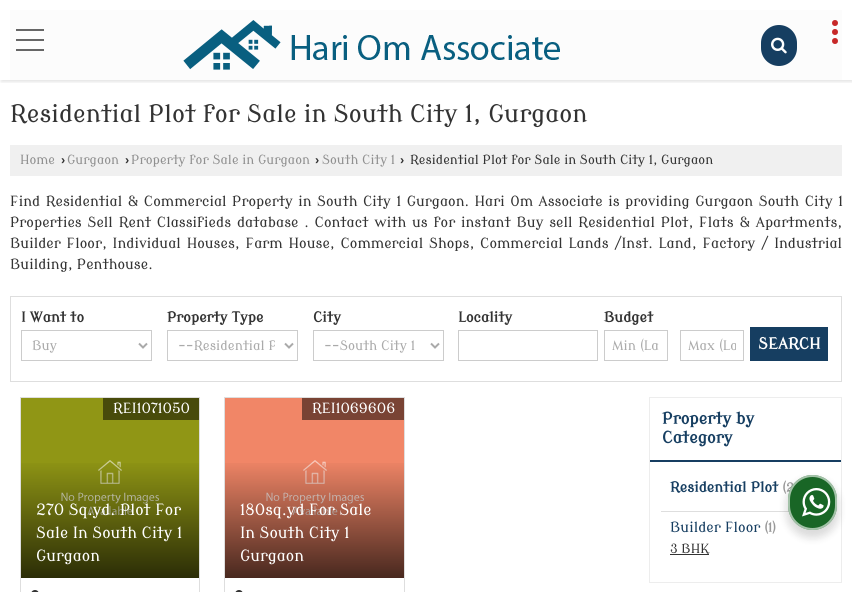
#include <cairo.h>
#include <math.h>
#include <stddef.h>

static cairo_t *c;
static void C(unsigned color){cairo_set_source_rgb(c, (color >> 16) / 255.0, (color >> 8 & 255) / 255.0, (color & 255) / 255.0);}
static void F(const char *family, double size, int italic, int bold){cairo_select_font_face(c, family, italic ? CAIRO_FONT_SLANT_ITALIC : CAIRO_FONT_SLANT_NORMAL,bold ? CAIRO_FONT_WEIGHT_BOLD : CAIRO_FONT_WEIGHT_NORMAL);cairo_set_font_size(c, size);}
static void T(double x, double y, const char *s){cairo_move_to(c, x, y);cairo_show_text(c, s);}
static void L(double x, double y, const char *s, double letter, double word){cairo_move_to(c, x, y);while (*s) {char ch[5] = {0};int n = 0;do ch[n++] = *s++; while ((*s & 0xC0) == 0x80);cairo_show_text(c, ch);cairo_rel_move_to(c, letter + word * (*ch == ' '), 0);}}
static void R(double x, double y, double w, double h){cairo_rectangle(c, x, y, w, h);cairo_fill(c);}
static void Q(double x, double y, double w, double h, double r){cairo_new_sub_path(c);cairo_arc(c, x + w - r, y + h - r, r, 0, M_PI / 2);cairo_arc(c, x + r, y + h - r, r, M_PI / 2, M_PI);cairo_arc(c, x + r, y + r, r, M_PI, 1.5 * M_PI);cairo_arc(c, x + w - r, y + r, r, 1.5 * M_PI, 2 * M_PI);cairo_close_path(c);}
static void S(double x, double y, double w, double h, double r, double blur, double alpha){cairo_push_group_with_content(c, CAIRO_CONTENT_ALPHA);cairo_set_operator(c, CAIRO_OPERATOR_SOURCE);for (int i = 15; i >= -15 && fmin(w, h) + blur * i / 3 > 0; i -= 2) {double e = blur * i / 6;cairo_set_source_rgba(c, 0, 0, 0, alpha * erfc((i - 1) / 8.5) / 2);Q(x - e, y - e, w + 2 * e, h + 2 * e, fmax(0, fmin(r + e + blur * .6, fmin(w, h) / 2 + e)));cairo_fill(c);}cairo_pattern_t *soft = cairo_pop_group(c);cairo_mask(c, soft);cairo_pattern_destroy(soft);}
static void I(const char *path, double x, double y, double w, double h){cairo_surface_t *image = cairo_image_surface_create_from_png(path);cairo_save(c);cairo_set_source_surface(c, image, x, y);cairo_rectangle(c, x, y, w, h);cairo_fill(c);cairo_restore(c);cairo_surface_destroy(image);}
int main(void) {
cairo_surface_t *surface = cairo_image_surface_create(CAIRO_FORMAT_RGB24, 852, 592);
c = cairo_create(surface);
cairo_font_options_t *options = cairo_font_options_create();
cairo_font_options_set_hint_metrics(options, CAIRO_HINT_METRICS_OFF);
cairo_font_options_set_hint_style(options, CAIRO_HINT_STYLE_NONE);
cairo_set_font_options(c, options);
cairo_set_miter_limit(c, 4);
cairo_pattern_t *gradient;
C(0xffffff);
cairo_paint(c);
cairo_save(c);
cairo_rectangle(c,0,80,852,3);
cairo_clip(c);
C(0x000000);
S(1,2,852,80,0,1.5,.1);
cairo_restore(c);
C(0xfcfcfc);
R(10,10,832,70);
I("1.png",183,20,377,50);
C(0x666666);
R(16,39,28,2);
R(16,29,28,2);
R(16,49,28,2);
C(0x163e61);
Q(761,25,36,41,18);
cairo_fill(c);
I("2.png",771,37,16,17);
C(0xc72828);
cairo_arc(c,835,32,3,0,2 * M_PI);
cairo_fill(c);
cairo_arc(c,835,23,3,0,2 * M_PI);
cairo_fill(c);
cairo_arc(c,835,41,3,0,2 * M_PI);
cairo_fill(c);
F("Modern Antiqua",24,0,0);
C(0x333333);
T(10,122,"Residential Plot for Sale in South City 1, Gurgaon");
C(0xf0f0f0);
R(10,145,832,31);
F("Modern Antiqua",12.6,0,0);
C(0x909090);
T(20,164,"Home");
F("Liberation Sans",12.6,0,1);
C(0x333333);
T(61,164,"›");
F("Modern Antiqua",12.6,0,0);
C(0x909090);
T(67,164,"Gurgaon");
F("Liberation Sans",12.6,0,1);
C(0x333333);
T(125,164,"›");
F("Modern Antiqua",12.6,0,0);
C(0x909090);
T(131,164,"Property for Sale in Gurgaon");
F("Liberation Sans",12.6,0,1);
C(0x333333);
T(315,164,"›");
F("Modern Antiqua",12.6,0,0);
C(0x909090);
T(322,164,"South City 1");
F("Liberation Sans",12.6,0,1);
C(0x333333);
T(400,164,"›");
F("Modern Antiqua",12.6,0,0);
T(410,164,"Residential Plot for Sale in South City 1, Gurgaon");
F("Modern Antiqua",14,0,0);
L(10,206,"Find Residential & Commercial Property in South City 1 Gurgaon. Hari Om Associate is",0,1.4);
L(625,206,"providing Gurgaon South City 1",0,1.5);
L(10,227,"Properties Sell Rent Classifieds database . Contact with us for instant Buy sell Residential Plot, Flats & Apartments,",0,1.7);
L(10,248,"Builder Floor, Individual Houses, Farm House, Commercial Shops, Commercial Lands /Inst. Land, Factory / Industrial",0,1.7);
T(10,269,"Building, Penthouse.");
cairo_rectangle(c,10.5,296.5,831,85);
C(0xdedede);
cairo_set_line_width(c,1);
cairo_stroke(c);
F("Modern Antiqua",14,0,1);
C(0x333333);
T(21,322,"I Want to");
cairo_rectangle(c,21.5,330.5,130,30);
C(0xcccccc);
cairo_stroke(c);
cairo_new_path(c);
cairo_move_to(c,139,343.5);
cairo_line_to(c,143,347.5);
cairo_line_to(c,147,343.5);
C(0xaaaaaa);
cairo_set_line_width(c,2);
cairo_stroke(c);
F("Modern Antiqua",13,0,0);
T(32,350,"Buy");
F("Modern Antiqua",14,0,1);
C(0x333333);
T(167,322,"Property Type");
cairo_rectangle(c,167.5,330.5,130,30);
C(0xcccccc);
cairo_set_line_width(c,1);
cairo_stroke(c);
cairo_new_path(c);
cairo_move_to(c,285,343.5);
cairo_line_to(c,289,347.5);
cairo_line_to(c,293,343.5);
C(0xaaaaaa);
cairo_set_line_width(c,2);
cairo_stroke(c);
cairo_save(c);
cairo_rectangle(c,178,337,97,17);
cairo_clip(c);
F("Modern Antiqua",13,0,0);
T(178,350,"--Residential P");
cairo_restore(c);
C(0x333333);
T(313,322,"City");
cairo_rectangle(c,313.5,330.5,130,30);
C(0xcccccc);
cairo_set_line_width(c,1);
cairo_stroke(c);
cairo_new_path(c);
cairo_move_to(c,431,343.5);
cairo_line_to(c,435,347.5);
cairo_line_to(c,439,343.5);
C(0xaaaaaa);
cairo_set_line_width(c,2);
cairo_stroke(c);
F("Modern Antiqua",13,0,0);
T(324,350,"--South City 1");
F("Modern Antiqua",14,0,1);
C(0x333333);
T(458,322,"Locality");
cairo_rectangle(c,458.5,330.5,139,30);
C(0xcccccc);
cairo_set_line_width(c,1);
cairo_stroke(c);
C(0x333333);
T(604,322,"Budget");
cairo_rectangle(c,604.5,330.5,63,30);
C(0xcccccc);
cairo_stroke(c);
F("Modern Antiqua",13,0,0);
C(0xaaaaaa);
T(612,350,"Min (La");
cairo_rectangle(c,680.5,330.5,63,30);
C(0xcccccc);
cairo_stroke(c);
cairo_save(c);
cairo_rectangle(c,688,338,48,15);
cairo_clip(c);
C(0xaaaaaa);
T(688,350,"Max (La");
cairo_restore(c);
C(0x163e61);
R(750,327,78,34);
F("Modern Antiqua",15.5,0,1);
C(0xffffff);
T(758,349,"SEARCH");
cairo_rectangle(c,20.5,397.5,179,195);
C(0xdedede);
cairo_stroke(c);
C(0x909615);
R(21,398,178,180);
I("3.png",61,460,98,55);
C(0x484b0b);
R(103,398,96,22);
F("Modern Antiqua",14,0,0);
C(0xffffff);
T(113,413,"REI1071050");
gradient = cairo_pattern_create_linear(110,459,110,578);
cairo_pattern_add_color_stop_rgba(gradient,0,0,0,0,0);
cairo_pattern_add_color_stop_rgba(gradient,1,0,0,0,.7);
cairo_set_source(c,gradient);
cairo_pattern_destroy(gradient);
R(21,463,178,115);
F("Modern Antiqua",15.5,0,0);
C(0xffffff);
T(36,515,"270 Sq.yd. Plot For");
T(36,538,"Sale In South City 1");
T(36,561,"Gurgaon");
I("4.png",31,590,8,2);
cairo_rectangle(c,224.5,397.5,180,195);
C(0xdedede);
cairo_stroke(c);
C(0xf18667);
R(225,398,179,180);
I("5.png",266,460,98,55);
C(0x794334);
R(302,398,102,22);
F("Modern Antiqua",14,0,0);
C(0xffffff);
T(312,413,"REI1069606");
gradient = cairo_pattern_create_linear(315,459,315,578);
cairo_pattern_add_color_stop_rgba(gradient,0,0,0,0,0);
cairo_pattern_add_color_stop_rgba(gradient,1,0,0,0,.7);
cairo_set_source(c,gradient);
cairo_pattern_destroy(gradient);
R(225,463,179,115);
F("Modern Antiqua",15.5,0,0);
C(0xffffff);
T(240,515,"180sq.yd For Sale");
T(240,538,"In South City 1");
T(240,561,"Gurgaon");
I("4.png",235,590,8,2);
cairo_rectangle(c,649.5,397.5,192,185);
C(0xededed);
cairo_stroke(c);
C(0x163e61);
R(650,460,191,2);
F("Modern Antiqua",16,0,1);
T(662,424,"Property by");
T(662,443,"Category");
F("Modern Antiqua",14,0,1);
T(670,492,"Residential Plot");
F("Modern Antiqua",12.6,0,1);
C(0x999999);
T(782,492,"(2");
C(0xdedede);
R(661,511,128,1);
F("Modern Antiqua",14,0,0);
C(0x163e61);
T(670,532,"Builder Floor");
F("Modern Antiqua",12.6,0,1);
C(0x999999);
T(764,532,"(1)");
F("Modern Antiqua",12.6,0,0);
C(0x333333);
T(670,553,"3 BHK");
R(670,554,39,1);
C(0x000000);
S(786,479,53,59,26.5,4,.14);
C(0x196626);
Q(788,475,49,55,24.5);
cairo_fill(c);
Q(789,476,47,53,23.5);
cairo_set_source_rgba(c,1,1,1,0.6);
cairo_set_line_width(c,2);
cairo_stroke(c);
I("6.png",802,488,29,29);
cairo_surface_write_to_png(surface, "o.png");
cairo_font_options_destroy(options);
cairo_destroy(c);
cairo_surface_destroy(surface);
return 0;
}
